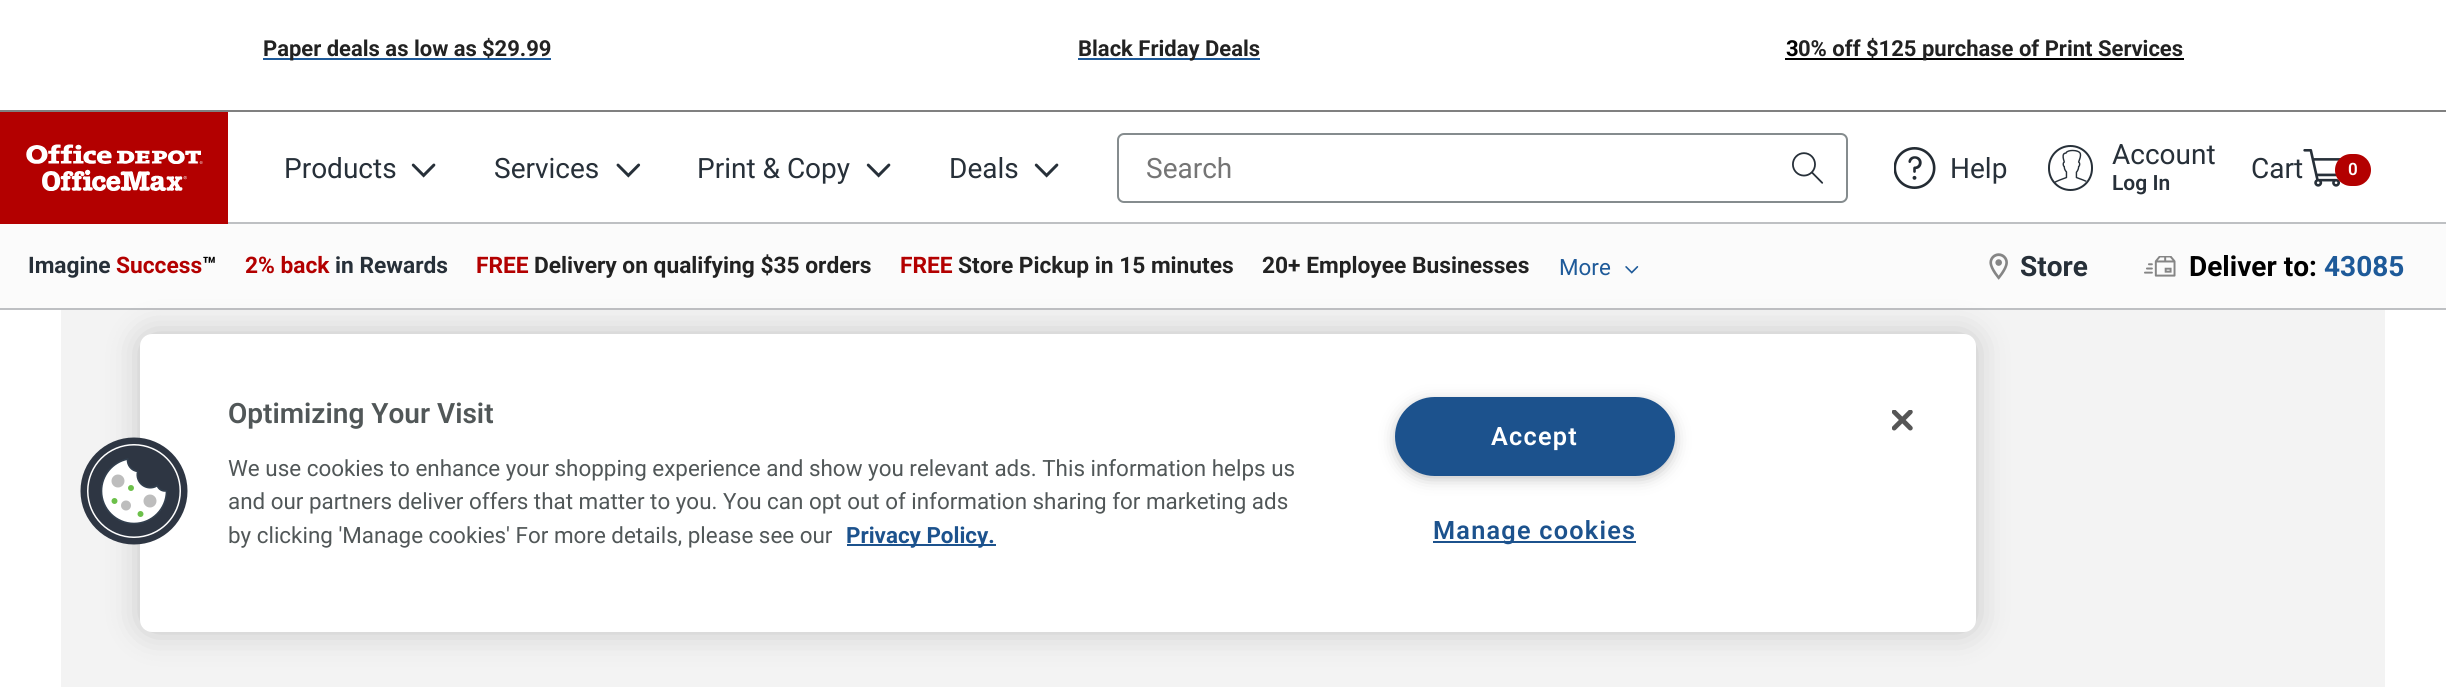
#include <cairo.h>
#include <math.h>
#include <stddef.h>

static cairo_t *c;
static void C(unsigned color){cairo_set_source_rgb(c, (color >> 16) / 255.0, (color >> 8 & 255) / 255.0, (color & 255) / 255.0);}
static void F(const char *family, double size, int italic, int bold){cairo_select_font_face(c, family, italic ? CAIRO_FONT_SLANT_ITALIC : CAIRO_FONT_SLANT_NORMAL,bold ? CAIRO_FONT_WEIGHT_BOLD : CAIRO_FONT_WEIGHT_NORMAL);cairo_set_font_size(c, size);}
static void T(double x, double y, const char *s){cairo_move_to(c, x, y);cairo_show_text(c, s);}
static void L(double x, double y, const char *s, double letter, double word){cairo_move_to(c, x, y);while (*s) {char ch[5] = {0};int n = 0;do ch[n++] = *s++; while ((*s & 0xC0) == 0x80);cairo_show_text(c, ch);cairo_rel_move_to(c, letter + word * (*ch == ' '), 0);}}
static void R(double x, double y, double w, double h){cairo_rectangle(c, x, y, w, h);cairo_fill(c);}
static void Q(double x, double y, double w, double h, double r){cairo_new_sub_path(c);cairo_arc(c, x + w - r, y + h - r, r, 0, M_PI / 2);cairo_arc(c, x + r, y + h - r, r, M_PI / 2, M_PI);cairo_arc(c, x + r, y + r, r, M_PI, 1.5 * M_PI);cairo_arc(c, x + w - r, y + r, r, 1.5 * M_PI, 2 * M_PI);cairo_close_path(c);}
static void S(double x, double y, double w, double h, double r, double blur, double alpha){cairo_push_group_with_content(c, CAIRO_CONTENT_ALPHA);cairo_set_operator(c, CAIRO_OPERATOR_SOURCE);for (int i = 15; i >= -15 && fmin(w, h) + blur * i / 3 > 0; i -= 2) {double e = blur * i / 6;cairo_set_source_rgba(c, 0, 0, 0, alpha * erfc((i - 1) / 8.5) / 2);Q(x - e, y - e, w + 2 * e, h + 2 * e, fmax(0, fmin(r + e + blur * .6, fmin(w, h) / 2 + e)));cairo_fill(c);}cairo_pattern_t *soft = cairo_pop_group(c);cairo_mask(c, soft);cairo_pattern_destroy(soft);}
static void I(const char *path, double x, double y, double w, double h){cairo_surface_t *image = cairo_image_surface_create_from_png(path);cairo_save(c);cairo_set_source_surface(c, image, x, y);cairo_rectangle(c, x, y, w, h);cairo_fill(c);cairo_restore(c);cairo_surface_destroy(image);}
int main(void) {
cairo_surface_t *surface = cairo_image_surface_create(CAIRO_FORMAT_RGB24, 2446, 687);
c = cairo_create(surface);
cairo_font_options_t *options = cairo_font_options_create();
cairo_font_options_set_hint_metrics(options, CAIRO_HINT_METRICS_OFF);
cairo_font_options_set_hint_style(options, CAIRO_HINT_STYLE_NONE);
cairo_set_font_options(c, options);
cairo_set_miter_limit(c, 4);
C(0xffffff);
cairo_paint(c);
C(0x808080);
R(0,110,2446,2);
C(0x1e5a99);
R(263,58,213,2);
F("Roboto",22,0,1);
C(0x222222);
T(263,56,"Paper deals as low as");
C(0x1e5a99);
R(476,58,75,2);
C(0x222222);
T(482,56,"$29.99");
C(0x1e5a99);
R(1078,58,182,2);
C(0x222222);
T(1078,56,"Black Friday Deals");
C(0x000000);
T(1786,56,"3");
R(1785,58,399,2);
C(0x222222);
T(1798,56,"0% off $125 purchase of Print Services");
C(0xbec0c3);
R(228,222,2218,2);
C(0xb30000);
R(0,112,228,112);
I("1.png",26,144,177,47);
F("Roboto",28,0,0);
C(0x273039);
T(284,178,"Products");
I("2.png",411,163,25,15);
T(494,178,"Services");
I("3.png",616,163,25,15);
T(697,178,"Print & Copy");
I("2.png",866,163,25,15);
T(949,178,"Deals");
I("2.png",1034,163,25,15);
Q(1118,134,729,68,6);
C(0x858c8e);
cairo_stroke(c);
C(0x757575);
T(1146,178,"Search");
I("4.png",1792,152,32,32);
I("5.png",1894,147,42,42);
C(0x273039);
T(1950,178,"Help");
Q(2049,146,43,44,21.5);
cairo_stroke(c);
I("6.png",2054,149,33,34);
T(2112,164,"Account");
F("Roboto SemiBold",21,0,0);
T(2112,190,"Log In");
F("Roboto",28,0,0);
T(2251,178,"Cart");
I("7.png",2303,149,38,38);
C(0xb30000);
Q(2335,154,36,32,16);
cairo_fill(c);
F("Roboto SemiBold",17,0,0);
C(0xffffff);
T(2348,175,"0");
C(0xfbfbfb);
R(0,224,2446,84);
C(0xbec0c3);
R(0,308,2446,2);
F("Roboto",22.75,0,1);
C(0x273039);
T(28,273,"Imagine");
C(0xb30000);
T(116,273,"Success");
C(0x000000);
T(202,273,"™");
C(0xb30000);
T(245,273,"2% back");
C(0x273039);
T(335,273,"in Rewards");
C(0xb30000);
T(476,273,"FREE");
C(0x222222);
T(534,273,"Delivery on qualifying $35 orders");
C(0xb30000);
T(900,273,"FREE");
C(0x222222);
T(958,273,"Store Pickup in 15 minutes");
T(1262,273,"20+ Employee Businesses");
F("Roboto",22.4,0,0);
C(0x1e5a99);
T(1559,275,"More");
I("8.png",1625,266,14,8);
I("9.png",1989,253,19,27);
F("Roboto",28,0,1);
C(0x273039);
T(2020,276,"Store");
I("10.png",2144,256,32,21);
C(0x000000);
T(2189,276,"Deliver to:");
C(0x1e5a99);
T(2324,276,"43085");
C(0xf3f3f3);
R(61,310,2324,377);
C(0x000000);
S(140,334,1836,298,12,16,.2);
C(0xffffff);
Q(140,334,1836,298,12);
cairo_fill(c);
I("11.png",80,437,108,108);
F("Roboto SemiBold",28,0,0);
C(0x515758);
T(228,423,"Optimizing Your Visit");
F("Roboto",22.4,0,0);
T(228,476,"We use cookies to enhance your shopping experience and show you relevant ads. This information helps us");
T(228,509,"and our partners deliver offers that matter to you. You can opt out of information sharing for marketing ads");
T(228,543,"by clicking 'Manage cookies' For more details, please see our");
C(0x1c528d);
R(847,544,149,2);
F("Roboto",22.4,0,1);
T(846,543,"Privacy Policy.");
C(0x999999);
S(1400,406,270,68,34,9,1);
C(0x1c528d);
Q(1396,398,278,77,38.5);
cairo_fill_preserve(c);
cairo_stroke(c);
F("Roboto SemiBold",25.25,0,0);
C(0xffffff);
L(1491,445,"Accept",1.25,0);
C(0x1c528d);
R(1433,541,203,2);
L(1433,539,"Manage cookies",1.25,0);
I("12.png",1892,410,21,21);
cairo_surface_write_to_png(surface, "o.png");
cairo_font_options_destroy(options);
cairo_destroy(c);
cairo_surface_destroy(surface);
return 0;
}
